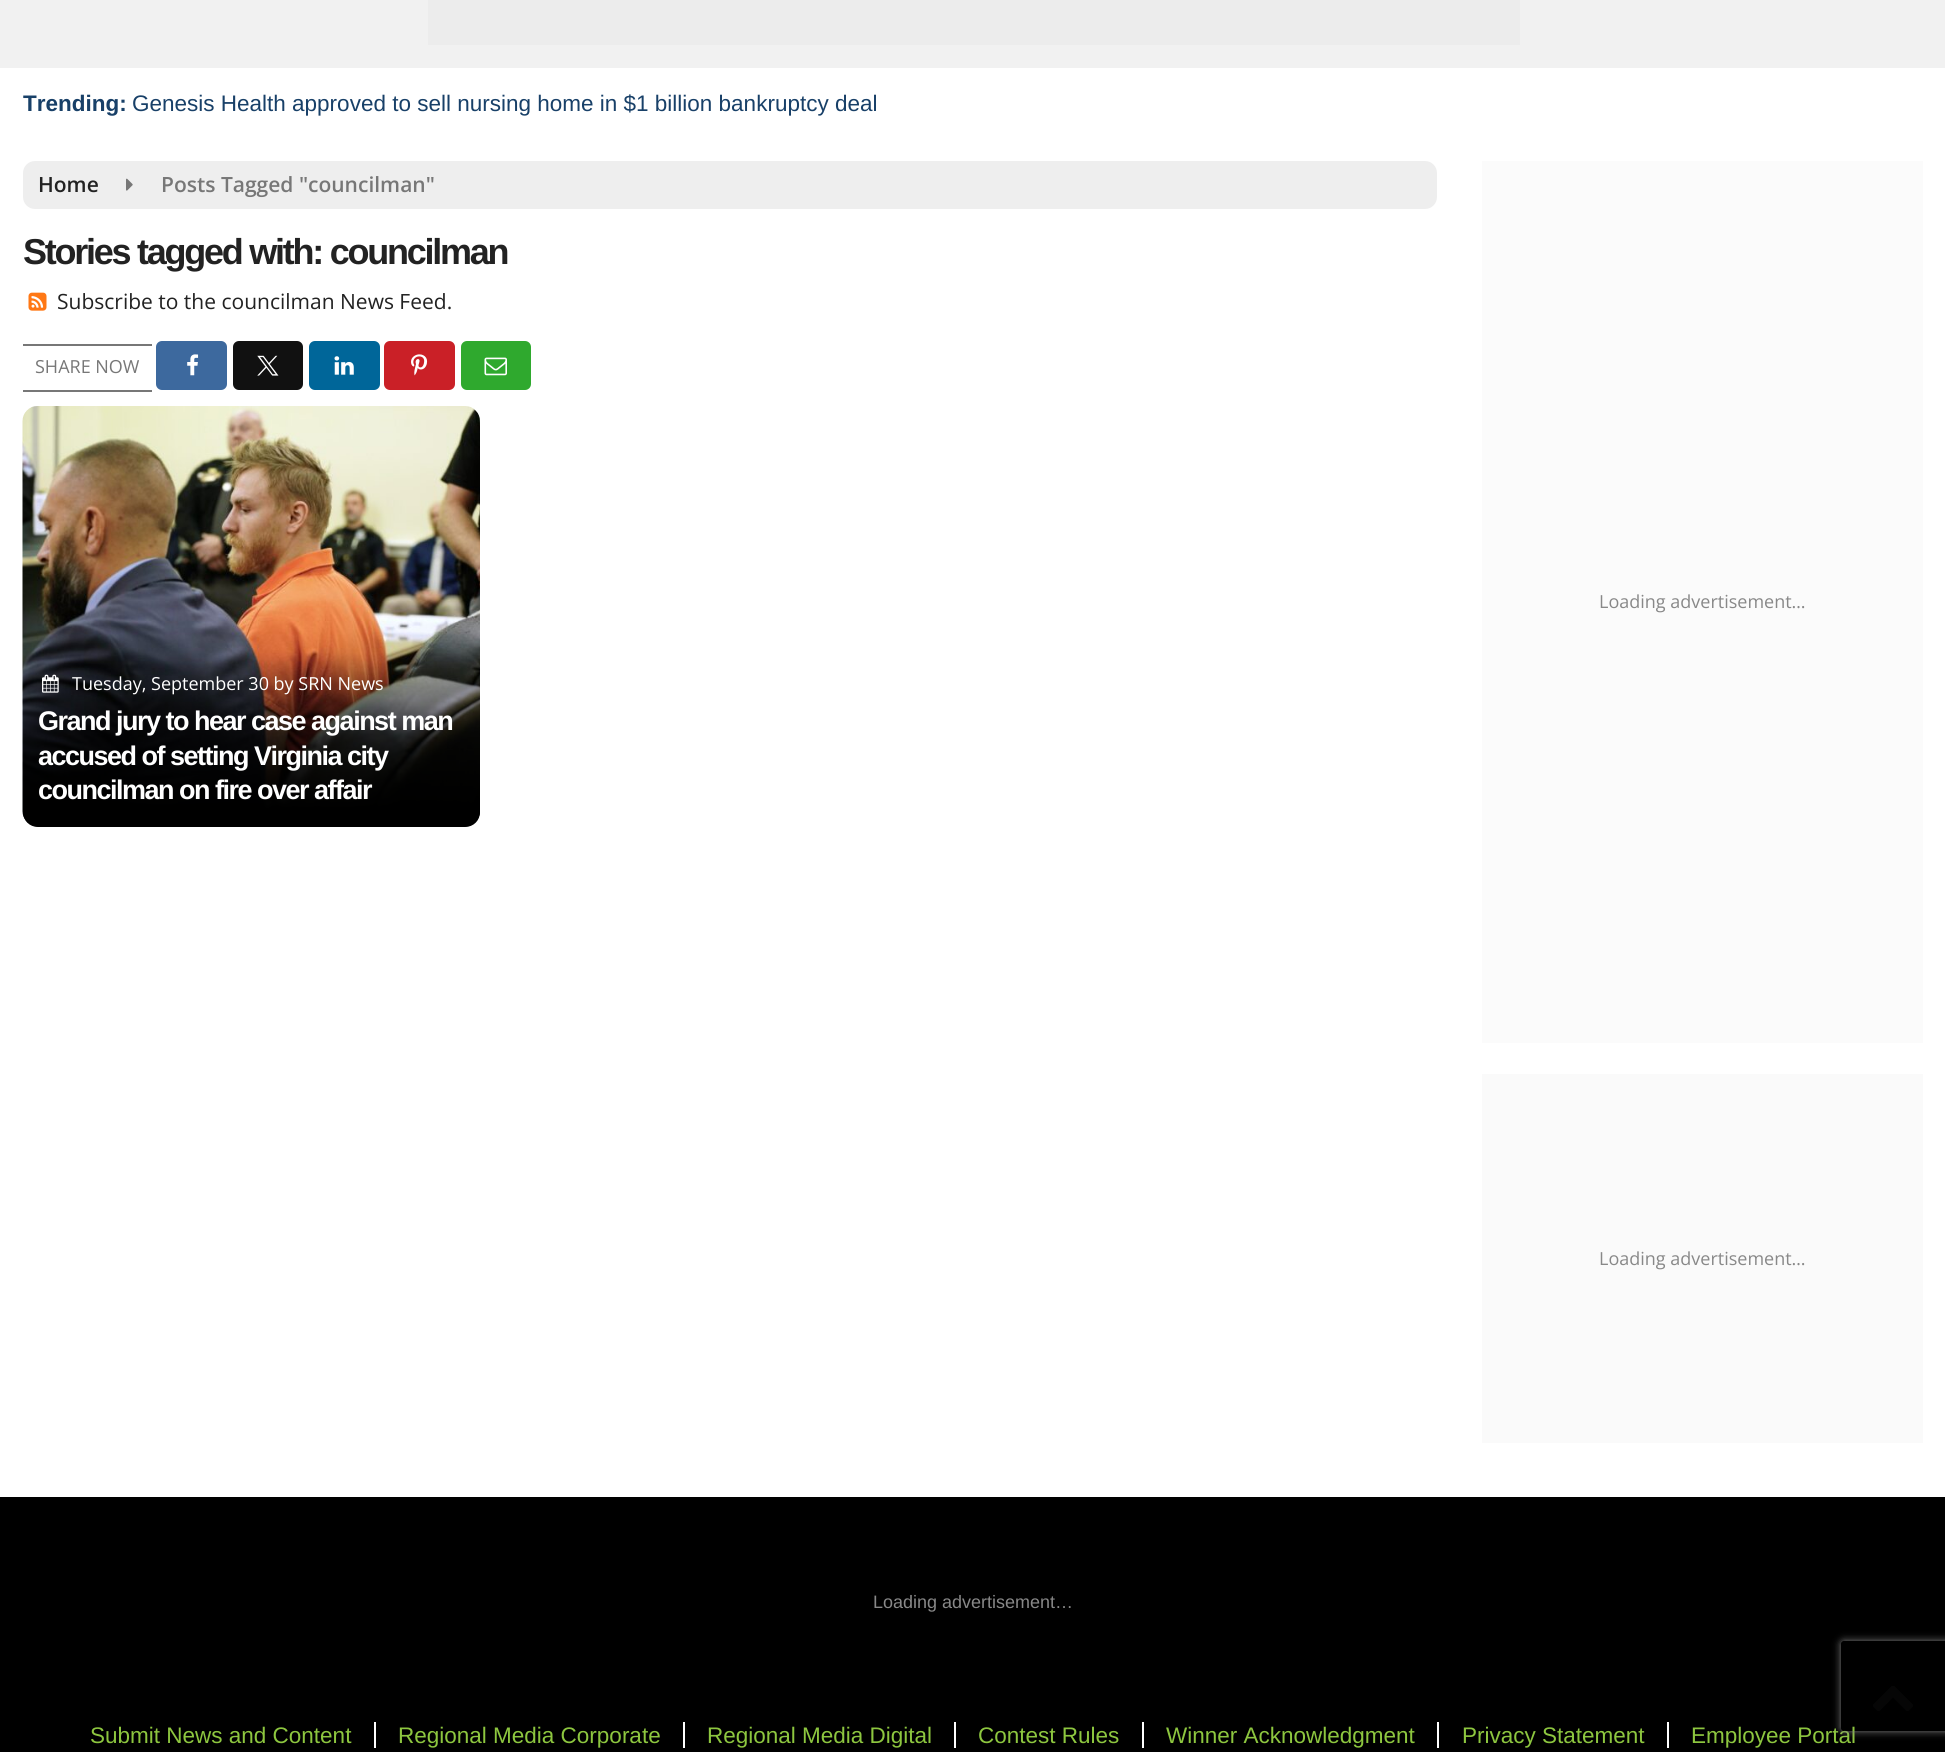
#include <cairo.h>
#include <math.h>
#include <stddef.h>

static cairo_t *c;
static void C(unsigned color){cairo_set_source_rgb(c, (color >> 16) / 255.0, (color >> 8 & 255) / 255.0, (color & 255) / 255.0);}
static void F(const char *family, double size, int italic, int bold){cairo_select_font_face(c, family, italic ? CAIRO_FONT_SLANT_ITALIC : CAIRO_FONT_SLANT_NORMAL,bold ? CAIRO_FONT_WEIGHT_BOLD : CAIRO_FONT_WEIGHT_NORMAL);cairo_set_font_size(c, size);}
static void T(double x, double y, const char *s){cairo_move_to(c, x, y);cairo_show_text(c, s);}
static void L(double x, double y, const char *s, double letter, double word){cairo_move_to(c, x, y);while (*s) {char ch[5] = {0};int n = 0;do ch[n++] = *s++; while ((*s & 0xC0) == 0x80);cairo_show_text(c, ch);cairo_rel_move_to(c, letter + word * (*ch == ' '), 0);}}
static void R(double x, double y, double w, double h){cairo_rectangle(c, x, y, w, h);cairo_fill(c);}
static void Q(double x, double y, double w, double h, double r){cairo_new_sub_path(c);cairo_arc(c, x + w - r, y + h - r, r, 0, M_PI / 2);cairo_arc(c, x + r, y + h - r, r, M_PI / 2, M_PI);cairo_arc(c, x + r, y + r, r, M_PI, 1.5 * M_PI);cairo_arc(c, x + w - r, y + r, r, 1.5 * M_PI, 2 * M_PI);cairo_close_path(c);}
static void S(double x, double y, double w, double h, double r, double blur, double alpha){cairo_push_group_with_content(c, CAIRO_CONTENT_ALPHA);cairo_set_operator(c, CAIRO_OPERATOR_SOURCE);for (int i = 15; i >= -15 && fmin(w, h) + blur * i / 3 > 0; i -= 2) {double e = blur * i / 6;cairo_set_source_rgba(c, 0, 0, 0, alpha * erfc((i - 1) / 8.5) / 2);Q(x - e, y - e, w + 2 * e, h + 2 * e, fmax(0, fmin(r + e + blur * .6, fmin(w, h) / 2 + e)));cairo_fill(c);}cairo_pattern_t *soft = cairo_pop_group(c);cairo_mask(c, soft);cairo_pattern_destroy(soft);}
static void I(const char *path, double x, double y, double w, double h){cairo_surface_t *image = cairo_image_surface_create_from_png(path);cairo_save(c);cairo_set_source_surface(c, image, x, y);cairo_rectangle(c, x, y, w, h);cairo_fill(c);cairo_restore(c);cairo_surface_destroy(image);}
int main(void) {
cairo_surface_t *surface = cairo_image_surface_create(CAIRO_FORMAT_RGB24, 1945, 1752);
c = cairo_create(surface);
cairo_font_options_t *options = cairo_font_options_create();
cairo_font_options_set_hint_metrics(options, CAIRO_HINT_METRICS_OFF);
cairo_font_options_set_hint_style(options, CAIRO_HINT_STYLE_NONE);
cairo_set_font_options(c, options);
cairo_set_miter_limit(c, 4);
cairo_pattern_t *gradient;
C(0xffffff);
cairo_paint(c);
C(0xf1f1f1);
R(0,0,1945,68);
C(0xececec);
R(428,0,1092,45);
F("Liberation Sans",22.5,0,1);
C(0x184068);
T(23,111,"Trending:");
F("Liberation Sans",22.5,0,0);
T(132,111,"Genesis Health approved to sell nursing home in $1 billion bankruptcy deal");
C(0xeeeeee);
Q(23,161,1414,48,12);
cairo_fill(c);
F("Open Sans SemiBold",21,0,0);
C(0x222222);
T(38,192,"Home");
I("1.png",126,178,7,13);
C(0x777777);
T(161,192,"Posts Tagged \"councilman\"");
F("Liberation Sans",36,0,1);
C(0x222222);
L(23,264,"Stories tagged with: councilman",-2.25,0);
I("2.png",28,292,19,19);
F("Open Sans",21,0,0);
T(57,309,"Subscribe to the councilman News Feed.");
C(0x777777);
R(23,344,129,2);
R(23,390,129,2);
F("Open Sans",18,0,0);
T(35,373,"SHARE NOW");
C(0x3d699e);
Q(156,341,71,49,6);
cairo_fill(c);
I("3.png",187,354,12,22);
C(0x111111);
Q(233,341,70,49,6);
cairo_fill(c);
I("4.png",257,355,22,21);
C(0x006699);
Q(309,341,71,49,6);
cairo_fill(c);
I("5.png",334,356,20,19);
C(0xca2027);
Q(384,341,71,49,6);
cairo_fill(c);
I("6.png",411,354,17,22);
C(0x2fa92e);
Q(461,341,70,49,6);
cairo_fill(c);
I("7.png",484,357,23,19);
I("8.png",22,406,458,419);
gradient = cairo_pattern_create_linear(251,653,251,827);
cairo_pattern_add_color_stop_rgba(gradient,0,0,0,0,0);
cairo_pattern_add_color_stop_rgba(gradient,.9,0,0,0,1);
cairo_set_source(c,gradient);
cairo_pattern_destroy(gradient);
cairo_new_path(c);
cairo_move_to(c,23,653);
cairo_line_to(c,480,653);
cairo_line_to(c,480,812);
cairo_curve_to(c,480,820.5,473.5,827,465,827);
cairo_line_to(c,38,827);
cairo_curve_to(c,29.5,827,23,820.5,23,812);
cairo_close_path(c);
cairo_fill(c);
I("9.png",42,674,17,19);
C(0xffffff);
T(72,690,"Tuesday, September 30 by SRN News");
F("Liberation Sans",27,0,1);
L(38,730,"Grand jury to hear case against man",-1.5,0);
L(38,765,"accused of setting Virginia city",-1.5,0);
L(38,799,"councilman on fire over affair",-1.5,0);
C(0xfbfbfb);
R(1482,161,441,882);
F("Open Sans",18,0,0);
C(0x888888);
T(1599,608,"Loading advertisement…");
C(0xfafafa);
R(1482,1074,441,369);
C(0x888888);
T(1599,1265,"Loading advertisement…");
C(0x000000);
R(0,1497,1945,255);
F("Liberation Sans",18,0,0);
C(0x888888);
T(873,1608,"Loading advertisement…");
I("10.png",1873,1686,40,25);
F("Liberation Sans",22.5,0,0);
C(0x8dc63f);
T(90,1743,"Submit News and Content");
C(0xffffff);
R(374,1722,2,26);
C(0x8dc63f);
T(398,1743,"Regional Media Corporate");
C(0xffffff);
R(683,1722,2,26);
C(0x8dc63f);
T(707,1743,"Regional Media Digital");
C(0xffffff);
R(954,1722,2,26);
C(0x8dc63f);
T(978,1743,"Contest Rules");
C(0xffffff);
R(1142,1722,2,26);
C(0x8dc63f);
T(1166,1743,"Winner Acknowledgment");
C(0xffffff);
R(1437,1722,2,26);
C(0x8dc63f);
T(1462,1743,"Privacy Statement");
C(0xffffff);
R(1667,1722,2,26);
C(0x8dc63f);
T(1691,1743,"Employee Portal");
cairo_save(c);
cairo_set_fill_rule(c,CAIRO_FILL_RULE_EVEN_ODD);
cairo_new_path(c);
cairo_move_to(c,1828,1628);
cairo_line_to(c,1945,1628);
cairo_line_to(c,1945,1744);
cairo_line_to(c,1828,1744);
cairo_close_path(c);
cairo_move_to(c,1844,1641);
cairo_line_to(c,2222,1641);
cairo_curve_to(c,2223.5,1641,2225,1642.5,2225,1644);
cairo_line_to(c,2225,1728);
cairo_curve_to(c,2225,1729.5,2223.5,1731,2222,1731);
cairo_line_to(c,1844,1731);
cairo_curve_to(c,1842.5,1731,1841,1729.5,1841,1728);
cairo_line_to(c,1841,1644);
cairo_curve_to(c,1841,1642.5,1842.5,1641,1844,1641);
cairo_close_path(c);
cairo_clip(c);
C(0x808080);
S(1841,1641,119,90,3,4,1);
cairo_restore(c);
cairo_surface_write_to_png(surface, "o.png");
cairo_font_options_destroy(options);
cairo_destroy(c);
cairo_surface_destroy(surface);
return 0;
}
